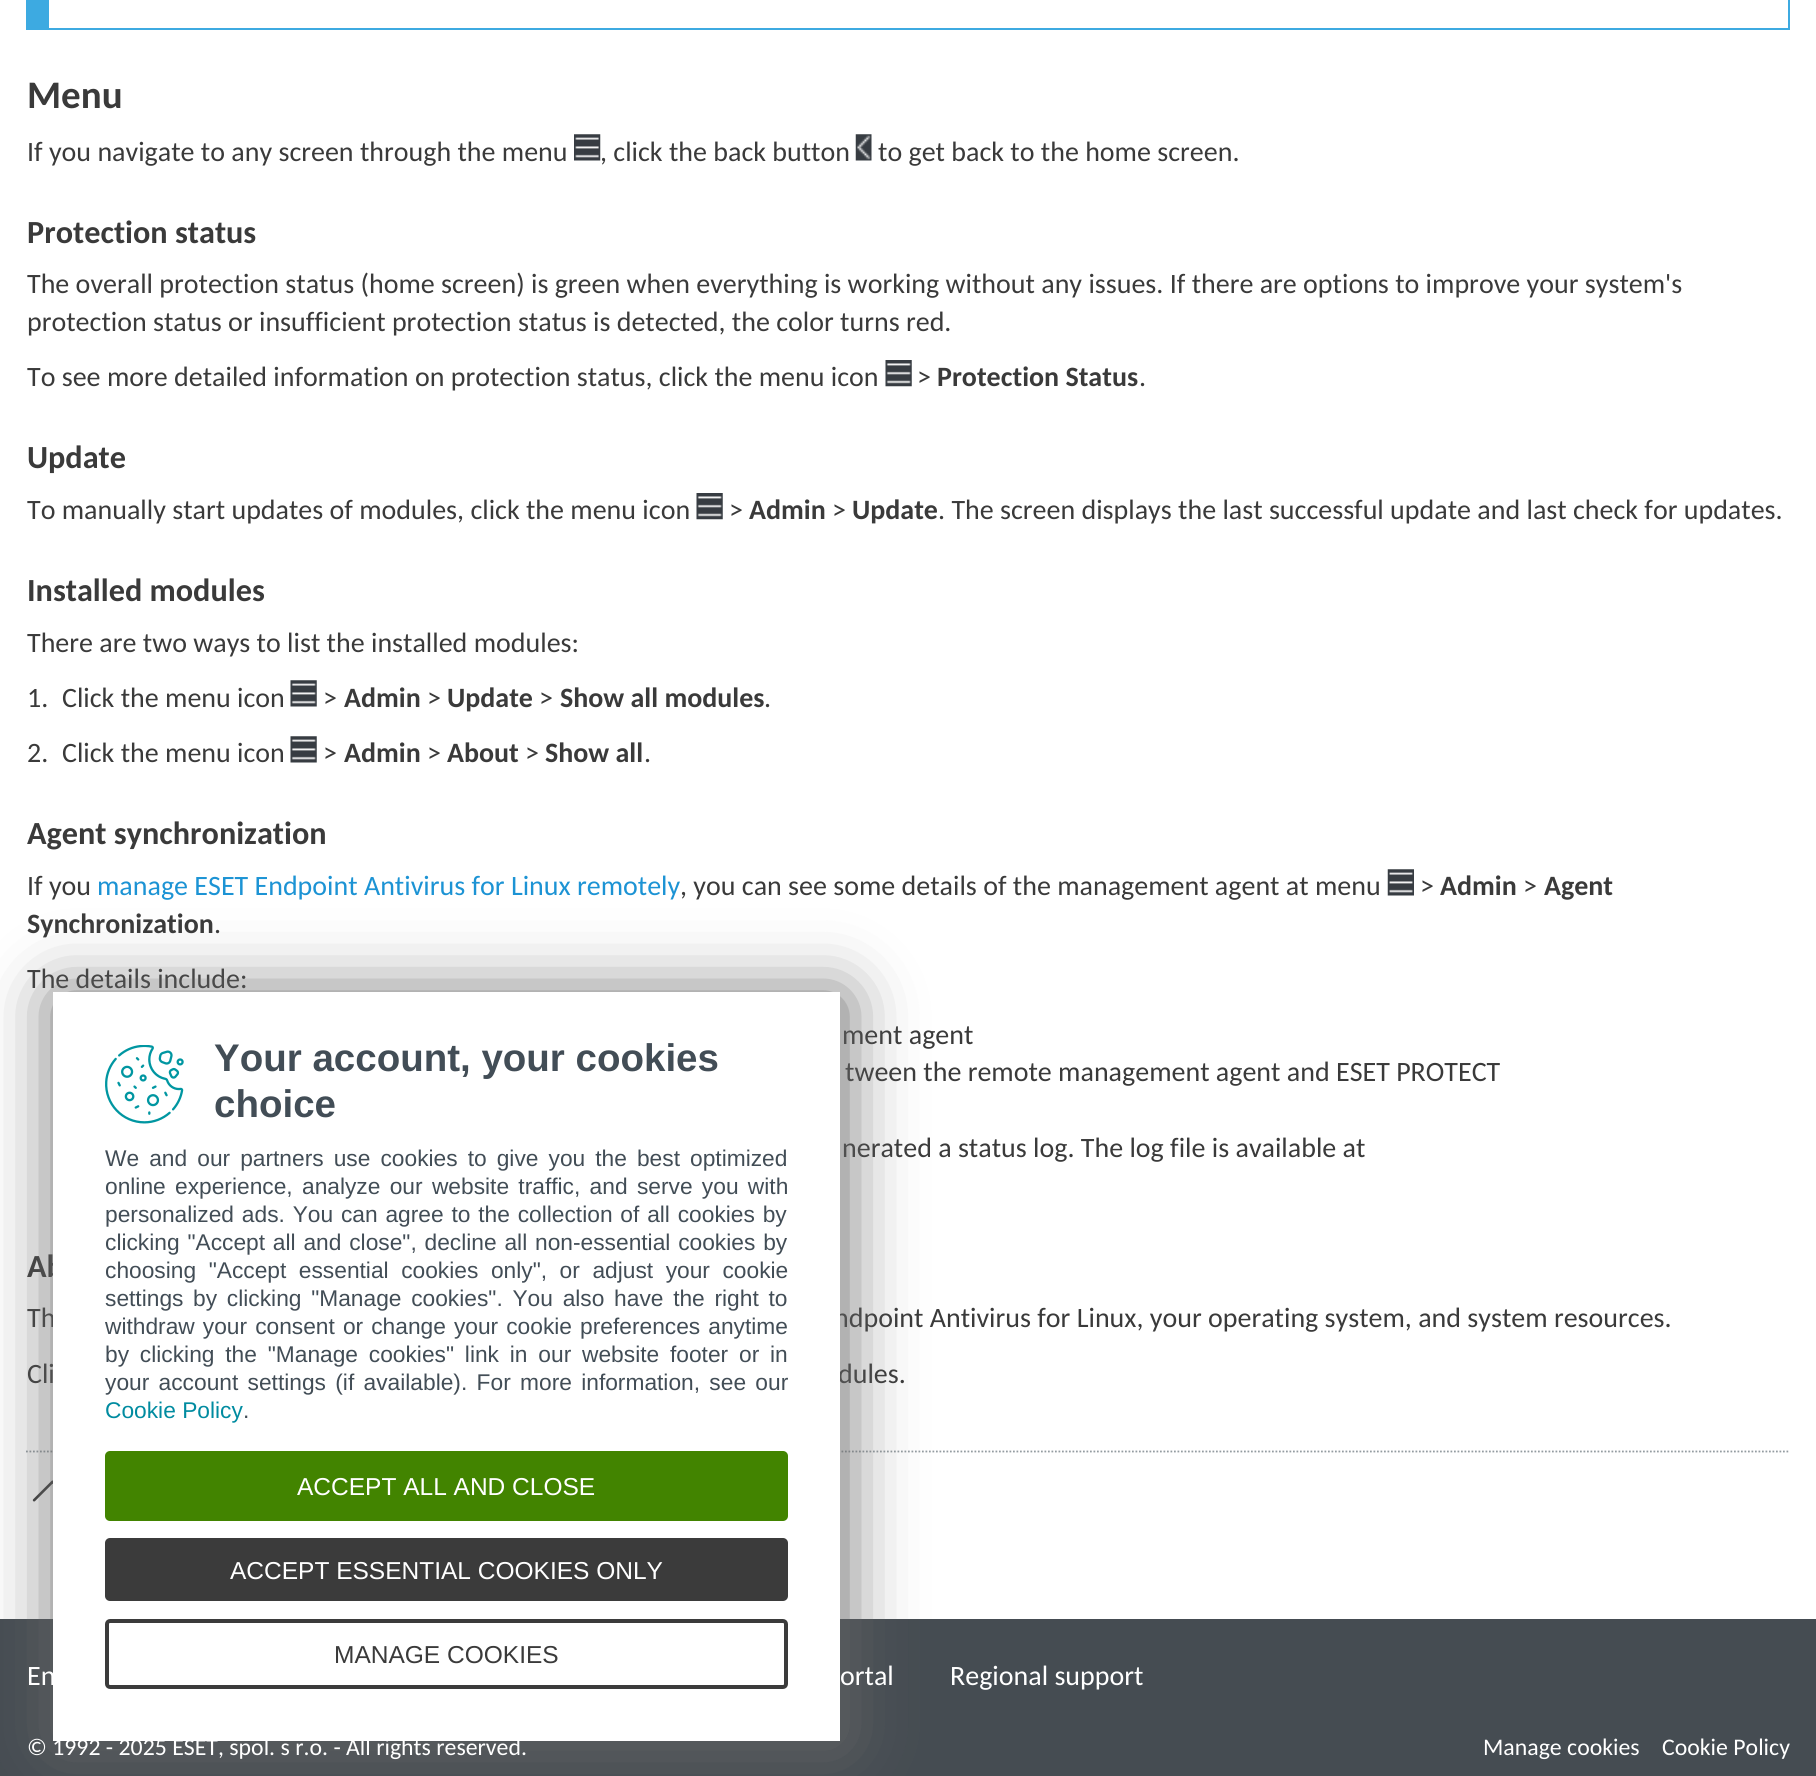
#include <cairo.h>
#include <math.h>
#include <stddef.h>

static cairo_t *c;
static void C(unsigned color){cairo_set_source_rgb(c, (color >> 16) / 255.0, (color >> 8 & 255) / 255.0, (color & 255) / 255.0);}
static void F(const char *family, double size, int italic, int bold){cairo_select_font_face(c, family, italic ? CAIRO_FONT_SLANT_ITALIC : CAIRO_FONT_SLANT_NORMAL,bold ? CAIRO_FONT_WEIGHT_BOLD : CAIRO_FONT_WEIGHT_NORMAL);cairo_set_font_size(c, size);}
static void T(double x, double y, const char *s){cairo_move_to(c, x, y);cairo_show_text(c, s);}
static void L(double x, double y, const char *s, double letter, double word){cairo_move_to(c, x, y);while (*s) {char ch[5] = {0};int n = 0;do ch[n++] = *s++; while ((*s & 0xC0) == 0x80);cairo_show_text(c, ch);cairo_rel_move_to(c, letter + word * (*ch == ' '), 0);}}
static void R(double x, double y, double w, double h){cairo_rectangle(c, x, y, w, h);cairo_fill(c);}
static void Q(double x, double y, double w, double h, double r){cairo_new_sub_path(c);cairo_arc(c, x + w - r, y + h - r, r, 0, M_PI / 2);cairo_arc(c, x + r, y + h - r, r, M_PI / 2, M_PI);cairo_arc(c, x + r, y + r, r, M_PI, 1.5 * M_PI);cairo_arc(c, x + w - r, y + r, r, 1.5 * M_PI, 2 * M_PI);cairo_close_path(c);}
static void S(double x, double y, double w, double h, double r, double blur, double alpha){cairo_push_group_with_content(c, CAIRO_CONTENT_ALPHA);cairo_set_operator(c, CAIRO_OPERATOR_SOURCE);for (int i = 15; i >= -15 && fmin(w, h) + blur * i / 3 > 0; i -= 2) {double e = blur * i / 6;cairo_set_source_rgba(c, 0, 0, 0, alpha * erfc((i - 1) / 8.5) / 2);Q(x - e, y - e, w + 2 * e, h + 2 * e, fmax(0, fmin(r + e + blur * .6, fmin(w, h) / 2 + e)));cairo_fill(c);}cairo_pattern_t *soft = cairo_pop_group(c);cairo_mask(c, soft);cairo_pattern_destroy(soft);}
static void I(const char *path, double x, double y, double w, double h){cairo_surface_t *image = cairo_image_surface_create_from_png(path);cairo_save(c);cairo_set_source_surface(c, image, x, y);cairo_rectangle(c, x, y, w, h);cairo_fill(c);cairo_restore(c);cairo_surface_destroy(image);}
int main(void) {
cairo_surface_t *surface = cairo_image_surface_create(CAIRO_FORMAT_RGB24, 1816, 1776);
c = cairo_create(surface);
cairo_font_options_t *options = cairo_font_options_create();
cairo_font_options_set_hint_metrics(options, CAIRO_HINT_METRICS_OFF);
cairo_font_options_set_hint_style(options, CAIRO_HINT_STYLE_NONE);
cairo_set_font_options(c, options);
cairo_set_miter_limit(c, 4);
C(0xffffff);
cairo_paint(c);
cairo_rectangle(c,27,-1,1762,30);
C(0x3daae1);
cairo_stroke(c);
R(28,0,21,28);
F("Carlito",39,0,1);
C(0x3a3a3a);
T(27,108,"Menu");
F("Carlito",28,0,0);
T(27,161,"If you navigate to any screen through the menu");
I("1.png",574,134,27,27);
T(600,161,", click the back button");
I("2.png",855,134,17,27);
T(878,161,"to get back to the home screen.");
F("Carlito",32.25,0,1);
T(27,243,"Protection status");
F("Carlito",28,0,0);
T(27,293,"The overall protection status (home screen) is green when everything is working without any issues. If there are options to improve your system's");
T(27,331,"protection status or insufficient protection status is detected, the color turns red.");
T(27,386,"To see more detailed information on protection status, click the menu icon");
I("3.png",885,360,27,27);
T(917,386,">");
F("Carlito",28,0,1);
T(937,386,"Protection Status");
F("Carlito",28,0,0);
T(1139,386,".");
F("Carlito",32.25,0,1);
T(27,468,"Update");
F("Carlito",28,0,0);
T(27,519,"To manually start updates of modules, click the menu icon");
I("3.png",696,493,27,27);
T(729,519,">");
F("Carlito",28,0,1);
T(749,519,"Admin");
F("Carlito",28,0,0);
T(832,519,">");
F("Carlito",28,0,1);
T(852,519,"Update");
F("Carlito",28,0,0);
T(938,519,". The screen displays the last successful update and last check for updates.");
F("Carlito",32.25,0,1);
T(27,601,"Installed modules");
F("Carlito",28,0,0);
T(27,652,"There are two ways to list the installed modules:");
T(27,707,"1.");
T(62,707,"Click the menu icon");
I("4.png",290,680,27,27);
T(323,707,">");
F("Carlito",28,0,1);
T(344,707,"Admin");
F("Carlito",28,0,0);
T(427,707,">");
F("Carlito",28,0,1);
T(447,707,"Update");
F("Carlito",28,0,0);
T(539,707,">");
F("Carlito",28,0,1);
T(560,707,"Show all modules");
F("Carlito",28,0,0);
T(764,707,".");
T(27,762,"2.");
T(62,762,"Click the menu icon");
I("4.png",290,736,27,27);
T(323,762,">");
F("Carlito",28,0,1);
T(344,762,"Admin");
F("Carlito",28,0,0);
T(427,762,">");
F("Carlito",28,0,1);
T(447,762,"About");
F("Carlito",28,0,0);
T(525,762,">");
F("Carlito",28,0,1);
T(545,762,"Show all");
F("Carlito",28,0,0);
T(644,762,".");
F("Carlito",32.25,0,1);
T(27,844,"Agent synchronization");
F("Carlito",28,0,0);
T(27,895,"If you");
C(0x1c93d4);
T(97,895,"manage ESET Endpoint Antivirus for Linux remotely");
C(0x3a3a3a);
T(680,895,", you can see some details of the management agent at menu");
I("5.png",1387,869,27,27);
T(1420,895,">");
F("Carlito",28,0,1);
T(1440,895,"Admin");
F("Carlito",28,0,0);
T(1523,895,">");
F("Carlito",28,0,1);
T(1544,895,"Agent");
T(27,933,"Synchronization");
F("Carlito",28,0,0);
T(214,933,".");
T(27,988,"The details include:");
T(842,1044,"ment agent");
T(845,1081,"tween the remote management agent and ESET PROTECT");
T(842,1157,"nerated a status log. The log file is available at");
F("Carlito",32.25,0,1);
T(27,1277,"Ab");
F("Carlito",28,0,0);
T(27,1327,"Th");
T(834,1327,"ndpoint Antivirus for Linux, your operating system, and system resources.");
T(27,1383,"Cli");
T(838,1383,"dules.");
cairo_new_path(c);
cairo_move_to(c,26,1451.5);
cairo_line_to(c,1790,1451.5);
C(0x949ca1);
cairo_set_line_width(c,1.8);
cairo_set_dash(c,(double[]){1.75,1.75},2,0);
cairo_stroke(c);
I("6.png",32,1480,21,22);
C(0x454c52);
R(0,1619,1816,157);
C(0x666666);
S(56,996,788,749,0,35,1);
C(0xffffff);
R(53,992,787,749);
F("Liberation Sans",38.5,0,1);
C(0x424d56);
T(214,1071,"Your account, your cookies");
T(214,1117,"choice");
F("Liberation Sans",22.75,0,0);
L(105,1166,"We and our partners use cookies to give you the best optimized",0,3.75);
L(105,1194,"online experience, analyze our website traffic, and serve you with",0,3);
L(105,1222,"personalized ads. You can agree to the collection of all cookies by",0,1.5);
L(105,1250,"clicking \"Accept all and close\", decline all non-essential cookies by",0,1.5);
L(105,1278,"choosing \"Accept essential cookies only\", or adjust your cookie",0,6.25);
L(105,1306,"settings by clicking \"Manage cookies\". You also have the right to",0,3.4);
L(105,1334,"withdraw your consent or change your cookie preferences anytime",0,1.75);
L(105,1362,"by clicking the \"Manage cookies\" link in our website footer or in",0,4.5);
L(105,1390,"your account settings (if available). For more information, see our",0,3);
C(0x008ba0);
T(105,1418,"Cookie Policy");
C(0x424d56);
T(243,1418,".");
I("7.png",105,1045,79,79);
C(0x428400);
Q(105,1451,683,70,5);
cairo_fill(c);
F("Liberation Sans",24.5,0,0);
C(0xffffff);
T(297,1495,"ACCEPT ALL AND CLOSE");
C(0x3b3b3b);
Q(105,1538,683,63,5);
cairo_fill(c);
C(0xffffff);
T(230,1579,"ACCEPT ESSENTIAL COOKIES ONLY");
Q(107,1621,679,66,3);
C(0x3b3b3b);
cairo_set_line_width(c,4);
cairo_set_dash(c,NULL,0,0);
cairo_stroke(c);
C(0x3a3a3a);
T(334,1663,"MANAGE COOKIES");
F("Carlito",28,0,0);
C(0xffffff);
T(27,1685,"En");
T(840,1685,"ortal");
T(950,1685,"Regional support");
F("Carlito",23.8,0,0);
T(27,1755,"© 1992 - 2025 ESET, spol. s r.o. - All rights reserved.");
T(1483,1755,"Manage cookies");
T(1662,1755,"Cookie Policy");
cairo_surface_write_to_png(surface, "o.png");
cairo_font_options_destroy(options);
cairo_destroy(c);
cairo_surface_destroy(surface);
return 0;
}
